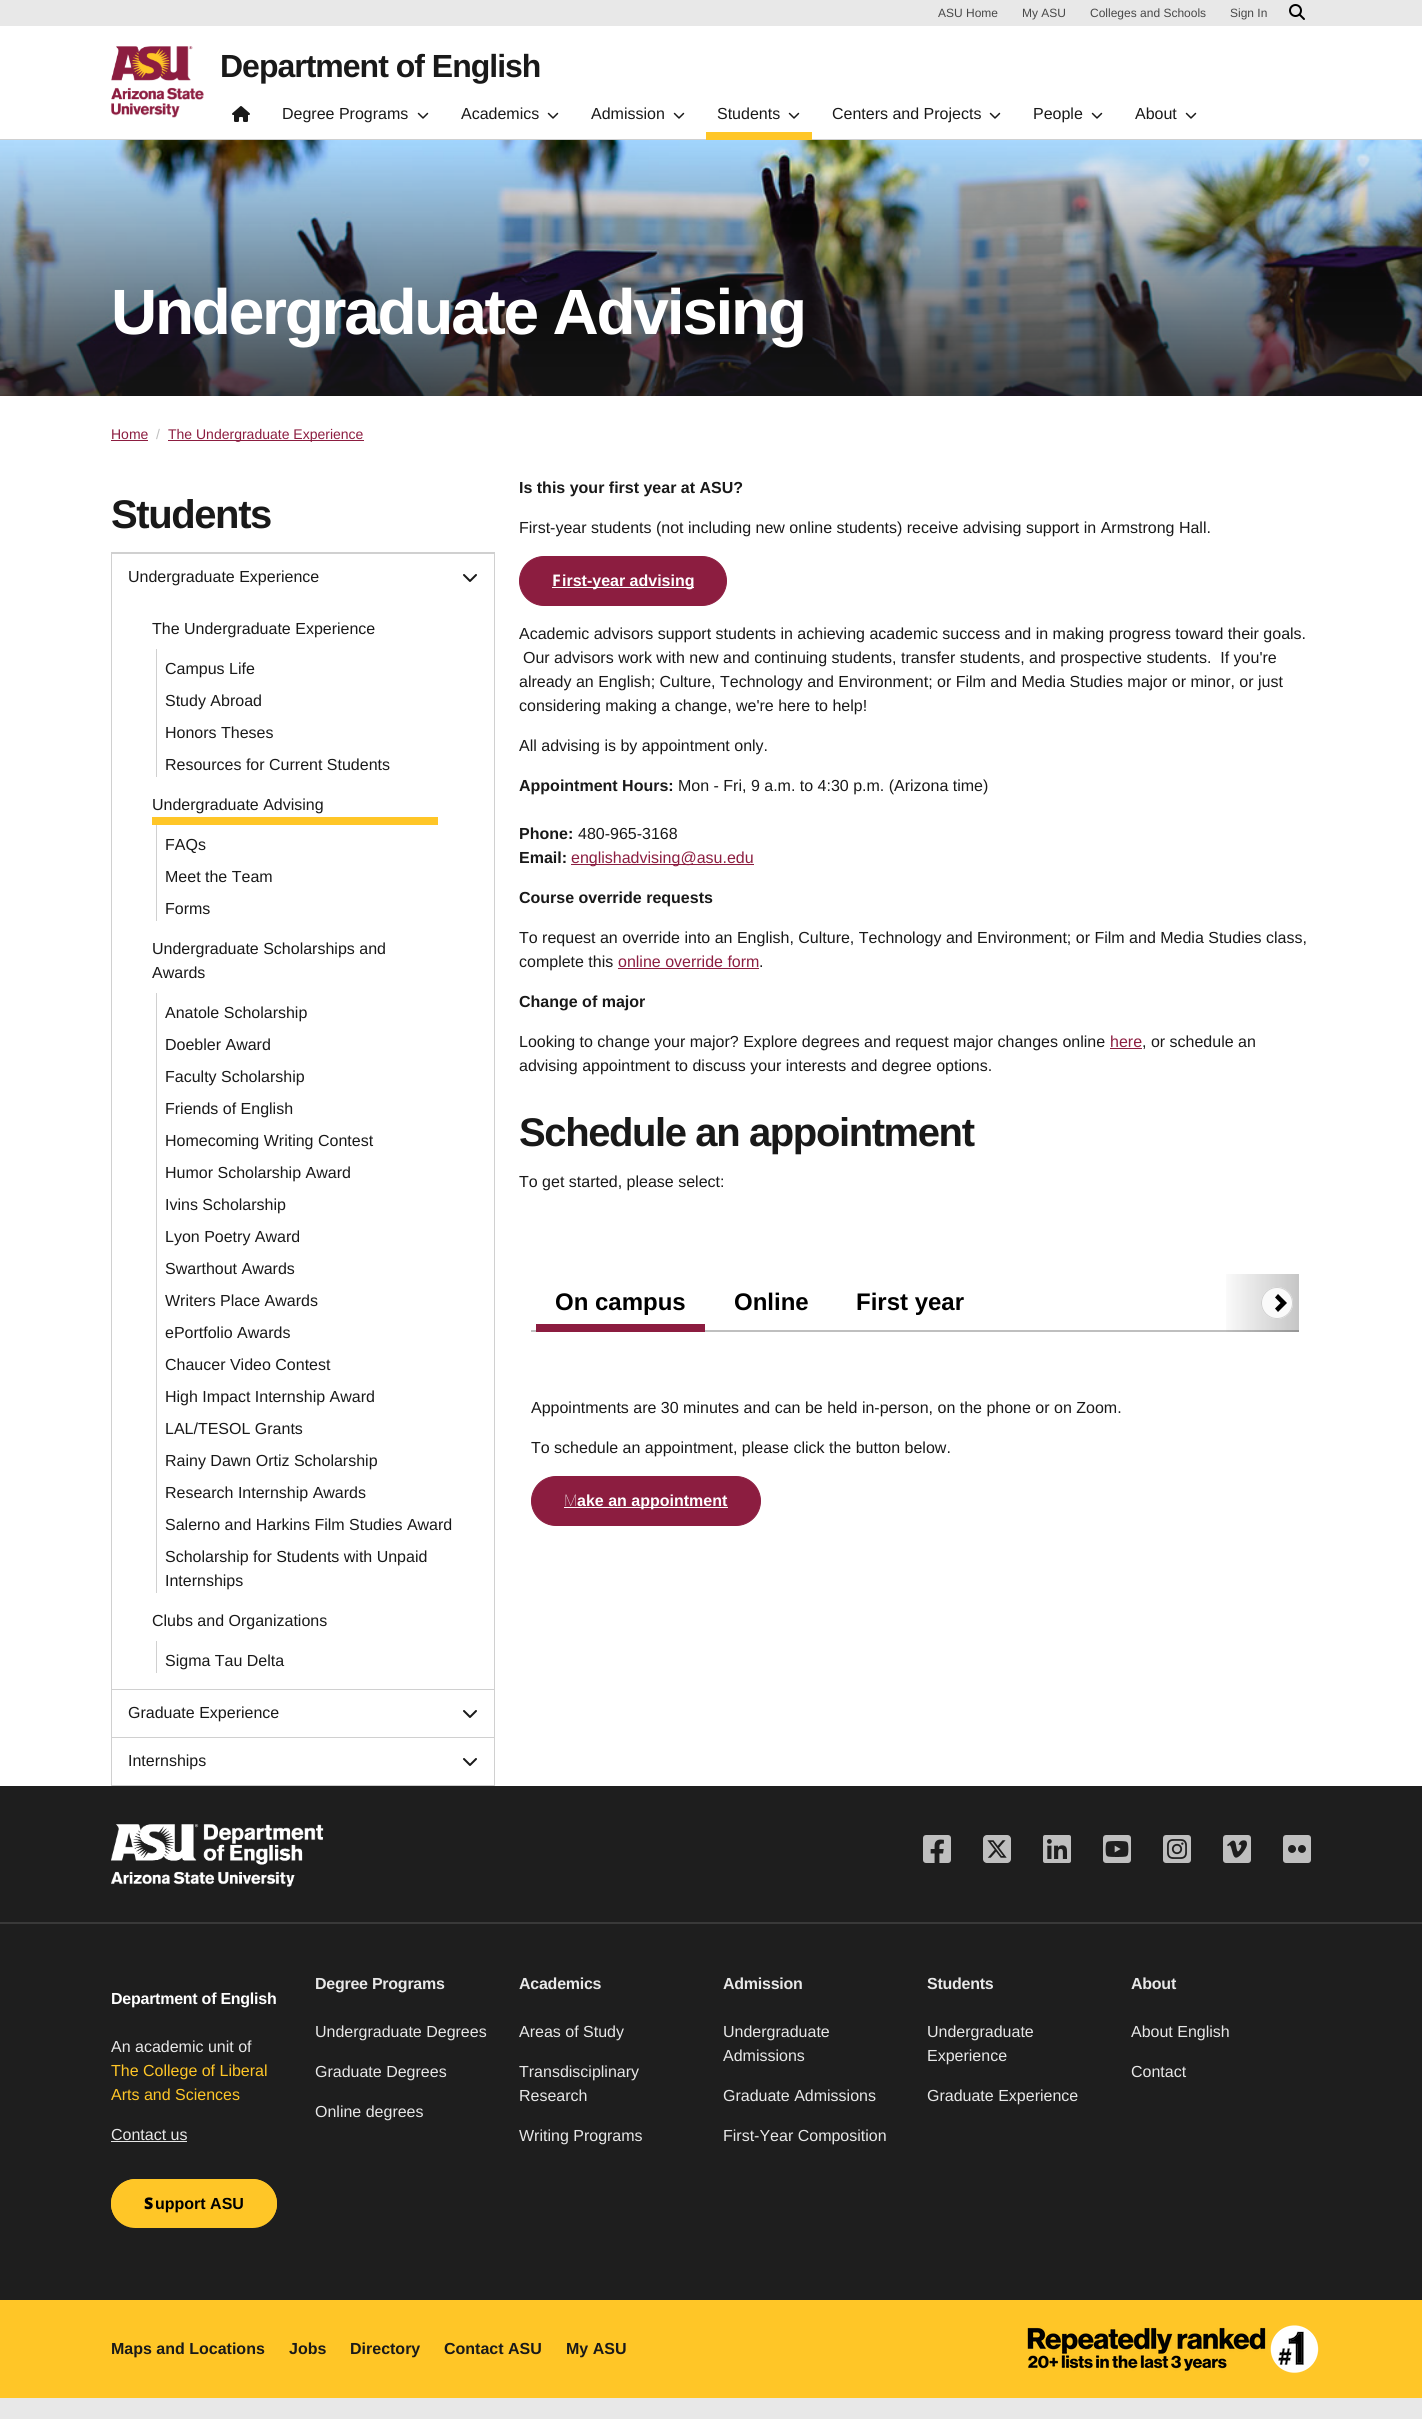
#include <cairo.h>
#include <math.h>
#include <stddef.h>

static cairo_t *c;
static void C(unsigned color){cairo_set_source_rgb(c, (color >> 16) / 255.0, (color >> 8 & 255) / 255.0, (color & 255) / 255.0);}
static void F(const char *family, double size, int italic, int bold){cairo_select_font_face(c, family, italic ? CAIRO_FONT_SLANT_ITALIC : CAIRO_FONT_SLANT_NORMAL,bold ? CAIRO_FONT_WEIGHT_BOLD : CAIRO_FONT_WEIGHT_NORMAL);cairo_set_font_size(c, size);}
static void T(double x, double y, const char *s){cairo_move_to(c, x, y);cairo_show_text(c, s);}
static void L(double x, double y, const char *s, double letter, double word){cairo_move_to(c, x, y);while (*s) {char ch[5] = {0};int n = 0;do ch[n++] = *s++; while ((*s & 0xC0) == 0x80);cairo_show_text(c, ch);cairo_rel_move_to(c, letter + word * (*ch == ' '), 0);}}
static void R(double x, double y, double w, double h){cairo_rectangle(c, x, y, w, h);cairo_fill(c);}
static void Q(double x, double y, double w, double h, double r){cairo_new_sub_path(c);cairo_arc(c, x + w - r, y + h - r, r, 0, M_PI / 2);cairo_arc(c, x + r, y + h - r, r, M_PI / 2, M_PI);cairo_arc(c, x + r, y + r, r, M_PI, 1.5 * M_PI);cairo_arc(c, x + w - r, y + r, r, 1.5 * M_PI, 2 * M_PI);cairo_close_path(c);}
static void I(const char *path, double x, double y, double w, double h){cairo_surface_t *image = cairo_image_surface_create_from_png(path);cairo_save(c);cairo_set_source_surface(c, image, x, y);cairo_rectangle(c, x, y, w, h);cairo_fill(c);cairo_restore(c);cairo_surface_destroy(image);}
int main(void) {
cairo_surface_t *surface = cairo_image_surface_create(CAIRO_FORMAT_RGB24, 1422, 2419);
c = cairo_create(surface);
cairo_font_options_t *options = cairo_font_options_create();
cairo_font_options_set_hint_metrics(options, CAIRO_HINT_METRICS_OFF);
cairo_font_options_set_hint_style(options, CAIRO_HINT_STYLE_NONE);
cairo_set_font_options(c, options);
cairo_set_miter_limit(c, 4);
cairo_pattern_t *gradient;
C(0xffffff);
cairo_paint(c);
C(0xe8e8e8);
R(0,0,1422,26);
F("Liberation Sans",12,0,0);
C(0x484848);
T(938,17,"ASU Home");
T(1022,17,"My ASU");
T(1090,17,"Colleges and Schools");
T(1230,17,"Sign In");
I("1.png",1289,4,16,16);
C(0xd0d0d0);
R(0,139,1422,1);
I("2.png",111,46,93,72);
F("Liberation Sans",32,0,1);
C(0x191919);
L(220,77,"Department of English",-1,0);
I("3.png",232,106,18,16);
F("Liberation Sans",16,0,0);
T(282,119,"Degree Programs");
I("4.png",417,112,12,7);
T(461,119,"Academics");
I("4.png",547,112,12,7);
T(591,119,"Admission");
I("4.png",673,112,12,7);
T(717,119,"Students");
I("4.png",788,112,12,7);
C(0xffc627);
R(706,132,106,8);
C(0x191919);
T(832,119,"Centers and Projects");
I("4.png",989,112,12,7);
T(1033,119,"People");
I("4.png",1091,112,12,7);
T(1135,119,"About");
I("4.png",1185,112,12,7);
I("5.png",0,140,1422,256);
F("Liberation Sans",64,0,1);
C(0xffffff);
L(111,334,"Undergraduate Advising",-2.25,0);
F("Liberation Sans",14,0,0);
C(0x8c1d40);
T(111,439,"Home");
R(111,440,37,1);
C(0xbfbfbf);
T(156,439,"/");
C(0x8c1d40);
R(168,440,196,1);
T(168,439,"The Undergraduate Experience");
F("Liberation Sans",40,0,1);
C(0x191919);
L(111,528,"Students",-1.4,0);
cairo_rectangle(c,111.5,552.5,383,1233);
C(0xd0d0d0);
cairo_set_line_width(c,1);
cairo_stroke(c);
R(112,553,382,1);
F("Liberation Sans",16,0,0);
C(0x191919);
T(128,582,"Undergraduate Experience");
I("6.png",463,574,14,8);
T(152,634,"The Undergraduate Experience");
C(0xd0d0d0);
R(156,649,1,128);
C(0x191919);
T(165,674,"Campus Life");
T(165,706,"Study Abroad");
T(165,738,"Honors Theses");
T(165,770,"Resources for Current Students");
T(152,810,"Undergraduate Advising");
C(0xffc627);
R(152,817,286,8);
C(0xd0d0d0);
R(156,825,1,96);
C(0x191919);
T(165,850,"FAQs");
T(165,882,"Meet the Team");
T(165,914,"Forms");
T(152,954,"Undergraduate Scholarships and");
T(152,978,"Awards");
C(0xd0d0d0);
R(156,993,1,600);
C(0x191919);
T(165,1018,"Anatole Scholarship");
T(165,1050,"Doebler Award");
T(165,1082,"Faculty Scholarship");
T(165,1114,"Friends of English");
T(165,1146,"Homecoming Writing Contest");
T(165,1178,"Humor Scholarship Award");
T(165,1210,"Ivins Scholarship");
T(165,1242,"Lyon Poetry Award");
T(165,1274,"Swarthout Awards");
T(165,1306,"Writers Place Awards");
T(165,1338,"ePortfolio Awards");
T(165,1370,"Chaucer Video Contest");
T(165,1402,"High Impact Internship Award");
T(165,1434,"LAL/TESOL Grants");
T(165,1466,"Rainy Dawn Ortiz Scholarship");
T(165,1498,"Research Internship Awards");
T(165,1530,"Salerno and Harkins Film Studies Award");
T(165,1562,"Scholarship for Students with Unpaid");
T(165,1586,"Internships");
T(152,1626,"Clubs and Organizations");
C(0xd0d0d0);
R(156,1641,1,32);
C(0x191919);
T(165,1666,"Sigma Tau Delta");
C(0xd0d0d0);
R(112,1689,382,1);
C(0x191919);
T(128,1718,"Graduate Experience");
I("6.png",463,1710,14,8);
C(0xd0d0d0);
R(112,1737,382,1);
C(0x191919);
T(128,1766,"Internships");
I("6.png",463,1758,14,8);
F("Liberation Sans",16,0,1);
T(519,493,"Is this your first year at ASU?");
F("Liberation Sans",16,0,0);
T(519,533,"First-year students (not including new online students) receive advising support in Armstrong Hall.");
C(0x8c1d40);
Q(519.5,556.5,207,49,24.5);
cairo_fill_preserve(c);
cairo_stroke(c);
F("Noto Sans",16,0,1);
C(0xffffff);
T(552,586,"F");
R(552,587,142,1);
F("Liberation Sans",16,0,1);
T(562,586,"irst-year advising");
F("Liberation Sans",16,0,0);
C(0x191919);
T(519,639,"Academic advisors support students in achieving academic success and in making progress toward their goals.");
T(523,663,"Our advisors work with new and continuing students, transfer students, and prospective students.  If you're");
T(519,687,"already an English; Culture, Technology and Environment; or Film and Media Studies major or minor, or just");
T(519,711,"considering making a change, we're here to help!");
T(519,751,"All advising is by appointment only.");
F("Liberation Sans",16,0,1);
T(519,791,"Appointment Hours:");
F("Liberation Sans",16,0,0);
T(678,791,"Mon - Fri, 9 a.m. to 4:30 p.m. (Arizona time)");
F("Liberation Sans",16,0,1);
T(519,839,"Phone:");
F("Liberation Sans",16,0,0);
T(578,839,"480-965-3168");
F("Liberation Sans",16,0,1);
T(519,863,"Email:");
C(0x8c1d40);
R(571,864,183,1);
F("Liberation Sans",16,0,0);
T(571,863,"englishadvising@asu.edu");
F("Liberation Sans",16,0,1);
C(0x191919);
T(519,903,"Course override requests");
F("Liberation Sans",16,0,0);
T(519,943,"To request an override into an English, Culture, Technology and Environment; or Film and Media Studies class,");
T(519,967,"complete this");
C(0x8c1d40);
T(618,967,"online override form");
R(618,968,141,1);
C(0x191919);
T(759,967,".");
F("Liberation Sans",16,0,1);
T(519,1007,"Change of major");
F("Liberation Sans",16,0,0);
T(519,1047,"Looking to change your major? Explore degrees and request major changes online");
C(0x8c1d40);
T(1110,1047,"here");
R(1110,1048,32,1);
C(0x191919);
T(1142,1047,", or schedule an");
T(519,1071,"advising appointment to discuss your interests and degree options.");
F("Liberation Sans",40,0,1);
L(519,1146,"Schedule an appointment",-1.4,0);
F("Liberation Sans",16,0,0);
T(519,1187,"To get started, please select:");
C(0xbfbfbf);
R(531,1330,768,2);
C(0x8c1d40);
R(536,1324,169,8);
F("Liberation Sans",24,0,1);
C(0x000000);
T(555,1310,"On campus");
T(734,1310,"Online");
T(856,1310,"First year");
gradient = cairo_pattern_create_linear(1219,1303,1299,1303);
cairo_pattern_add_color_stop_rgba(gradient,0,0.098,0.098,0.098,0);
cairo_pattern_add_color_stop_rgba(gradient,1,0.098,0.098,0.098,.25);
cairo_set_source(c,gradient);
cairo_pattern_destroy(gradient);
R(1226,1274,73,58);
C(0xfafafa);
cairo_new_path(c);
cairo_arc(c,1277,1303,16,0,2 * M_PI);
cairo_fill(c);
C(0x000000);
cairo_new_path(c);
cairo_move_to(c,1278,1294);
cairo_line_to(c,1275,1297.5);
cairo_line_to(c,1280.5,1303);
cairo_line_to(c,1275,1308.5);
cairo_line_to(c,1278,1312);
cairo_line_to(c,1287,1303);
cairo_close_path(c);
cairo_fill(c);
cairo_arc(c,1277,1303,15.5,0,2 * M_PI);
C(0xd0d0d0);
cairo_stroke(c);
F("Liberation Sans",16,0,0);
C(0x191919);
T(531,1413,"Appointments are 30 minutes and can be held in-person, on the phone or on Zoom.");
T(531,1453,"To schedule an appointment, please click the button below.");
C(0x8c1d40);
Q(531.5,1476.5,229,49,24.5);
cairo_fill_preserve(c);
cairo_stroke(c);
F("Noto Sans Thin",16,0,0);
C(0xffffff);
T(564,1506,"M");
R(564,1507,164,1);
F("Liberation Sans",16,0,1);
T(577,1506,"ake an appointment");
C(0x1e1e1e);
R(0,1786,1422,514);
I("7.png",111,1824,213,63);
I("8.png",923,1835,28,28);
I("9.png",983,1835,28,28);
I("10.png",1043,1835,28,28);
I("11.png",1103,1835,28,28);
I("12.png",1163,1835,28,28);
I("13.png",1223,1835,28,28);
I("14.png",1283,1835,28,28);
C(0x393939);
R(0,1922,1422,2);
C(0xffffff);
L(111,2004,"Department of English",-.25,0);
F("Liberation Sans",16,0,0);
C(0xe8e8e8);
T(111,2052,"An academic unit of");
C(0xffc627);
T(111,2076,"The College of Liberal");
T(111,2100,"Arts and Sciences");
C(0xe8e8e8);
T(111,2140,"Contact us");
R(111,2141,76,1);
C(0xffc627);
Q(111,2179,166,49,24.5);
cairo_fill(c);
cairo_set_fill_rule(c,CAIRO_FILL_RULE_EVEN_ODD);
cairo_new_path(c);
cairo_move_to(c,136,2179);
cairo_line_to(c,252,2179);
cairo_curve_to(c,266,2179,277,2190,277,2204);
cairo_curve_to(c,277,2217,266,2228,252,2228);
cairo_line_to(c,136,2228);
cairo_curve_to(c,122,2228,111,2217,111,2204);
cairo_curve_to(c,111,2190,122,2179,136,2179);
cairo_close_path(c);
cairo_move_to(c,136,2180);
cairo_line_to(c,252,2180);
cairo_curve_to(c,265,2180,276,2191,276,2204);
cairo_curve_to(c,276,2217,265,2228,252,2228);
cairo_line_to(c,136,2228);
cairo_curve_to(c,123,2228,112,2217,112,2204);
cairo_curve_to(c,112,2191,123,2180,136,2180);
cairo_close_path(c);
cairo_fill(c);
F("Noto Sans Black",16,0,0);
C(0x000000);
T(144,2209,"S");
F("Liberation Sans",16,0,1);
T(155,2209,"upport ASU");
C(0xe8e8e8);
L(315,1989,"Degree Programs",-.25,0);
F("Liberation Sans",16,0,0);
T(315,2037,"Undergraduate Degrees");
T(315,2077,"Graduate Degrees");
T(315,2117,"Online degrees");
F("Liberation Sans",16,0,1);
L(519,1989,"Academics",-.25,0);
F("Liberation Sans",16,0,0);
T(519,2037,"Areas of Study");
T(519,2077,"Transdisciplinary");
T(519,2101,"Research");
T(519,2141,"Writing Programs");
F("Liberation Sans",16,0,1);
L(723,1989,"Admission",-.25,0);
F("Liberation Sans",16,0,0);
T(723,2037,"Undergraduate");
T(723,2061,"Admissions");
T(723,2101,"Graduate Admissions");
T(723,2141,"First-Year Composition");
F("Liberation Sans",16,0,1);
L(927,1989,"Students",-.25,0);
F("Liberation Sans",16,0,0);
T(927,2037,"Undergraduate");
T(927,2061,"Experience");
T(927,2101,"Graduate Experience");
F("Liberation Sans",16,0,1);
L(1131,1989,"About",-.25,0);
F("Liberation Sans",16,0,0);
T(1131,2037,"About English");
T(1131,2077,"Contact");
C(0xffc627);
R(0,2300,1422,98);
F("Liberation Sans",16,0,1);
C(0x191919);
T(111,2354,"Maps and Locations");
T(289,2354,"Jobs");
T(350,2354,"Directory");
T(444,2354,"Contact ASU");
T(566,2354,"My ASU");
I("15.png",1027,2325,292,48);
C(0xe8e8e8);
R(0,2398,1422,21);
cairo_surface_write_to_png(surface, "o.png");
cairo_font_options_destroy(options);
cairo_destroy(c);
cairo_surface_destroy(surface);
return 0;
}
